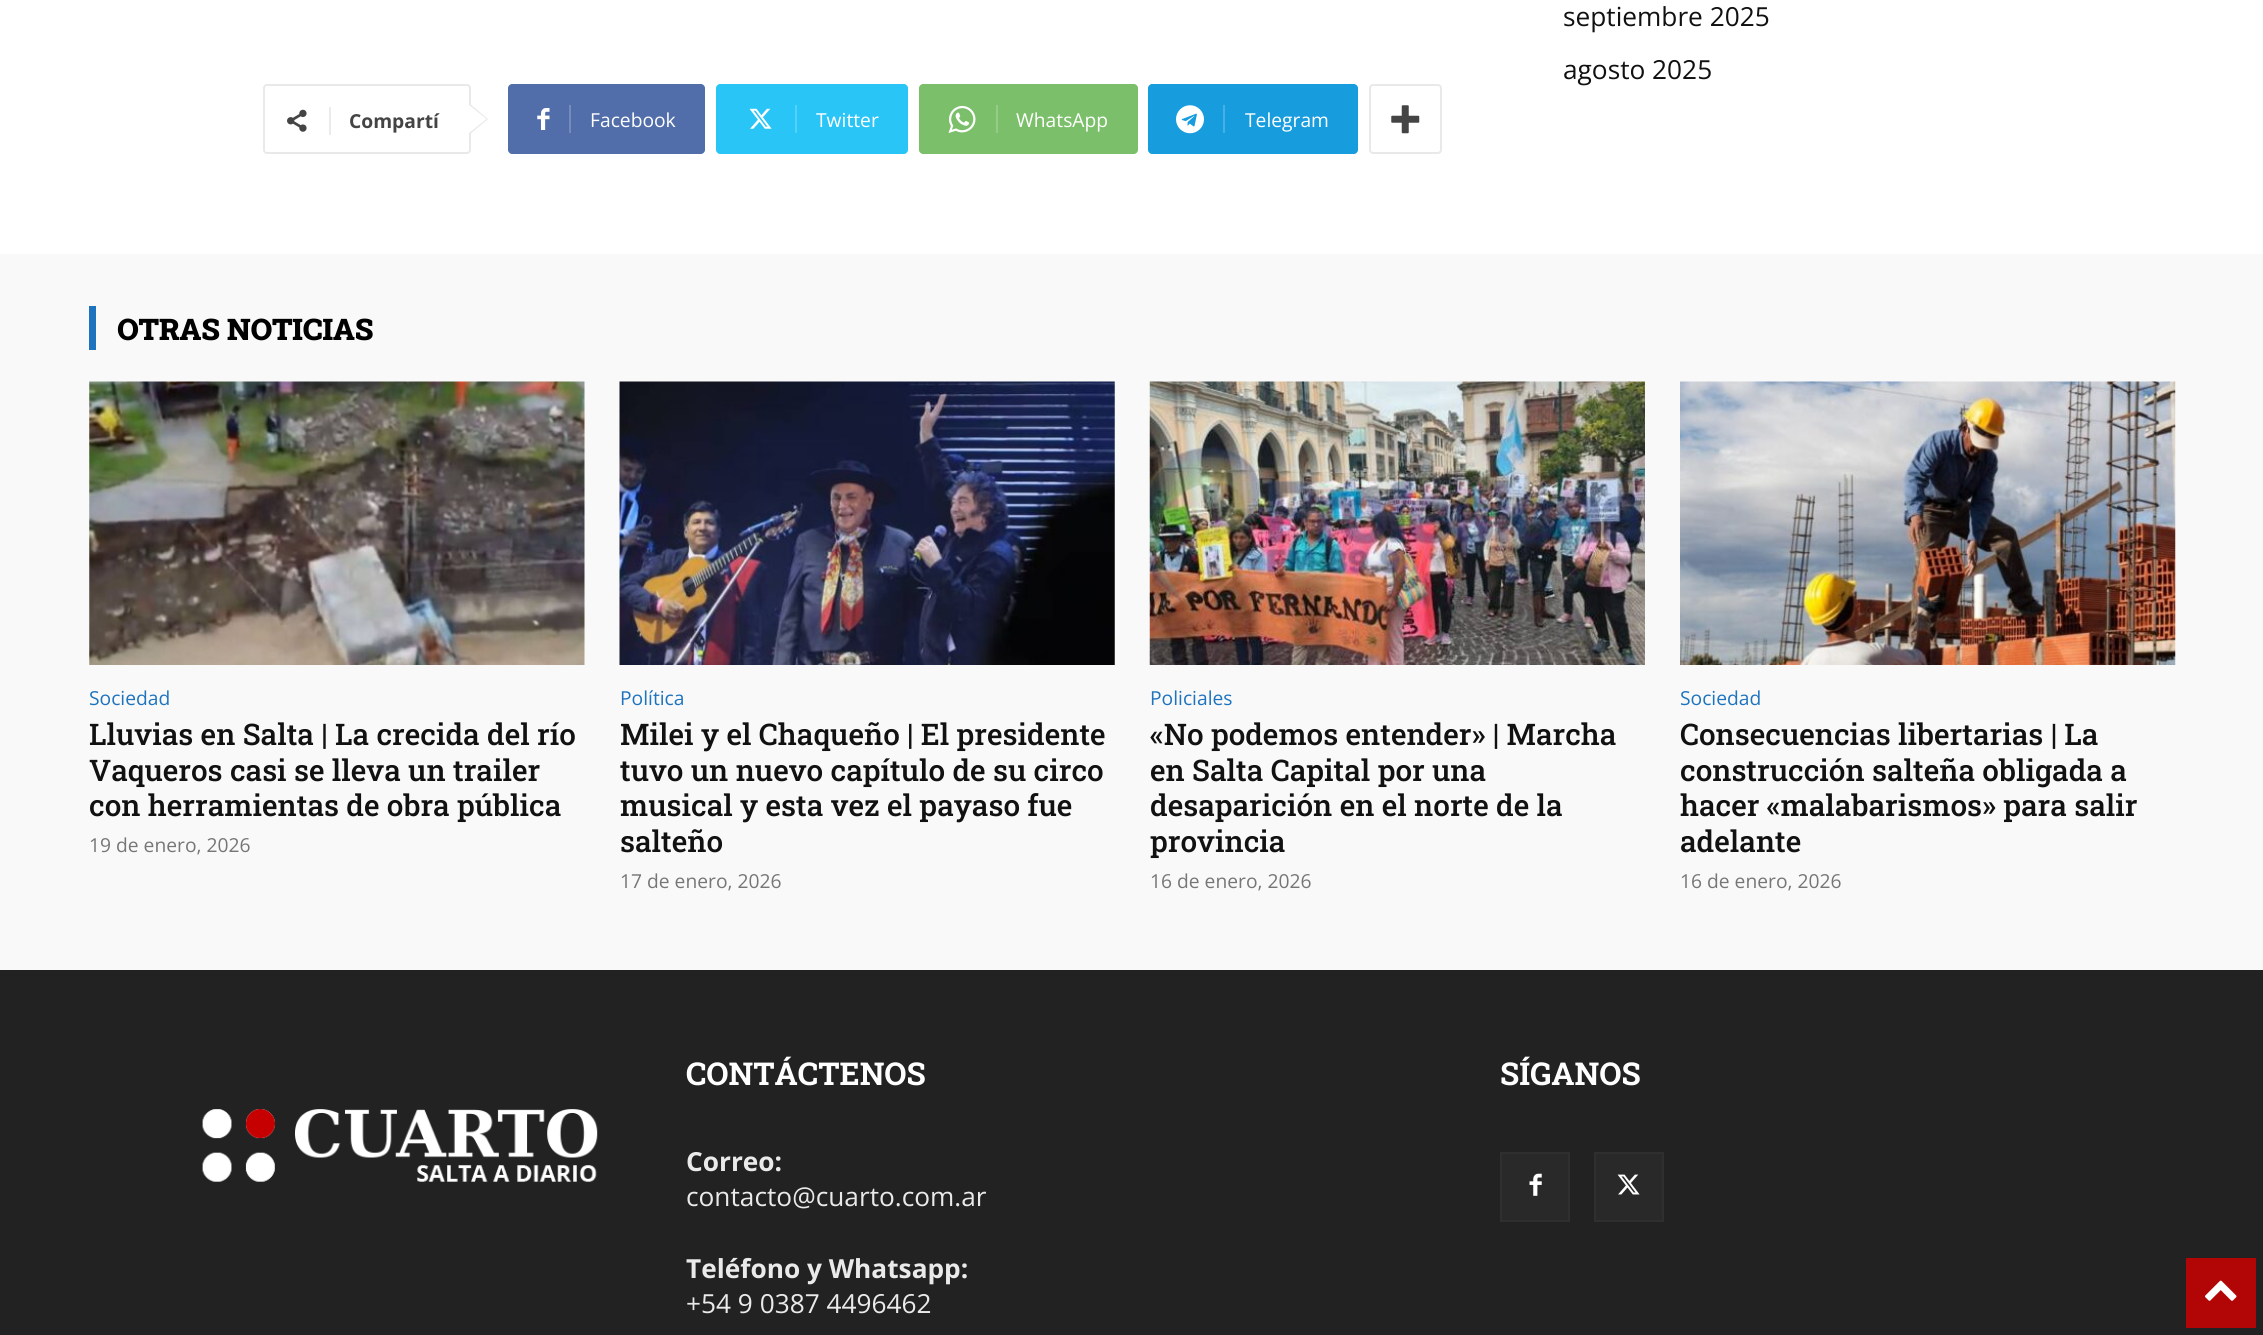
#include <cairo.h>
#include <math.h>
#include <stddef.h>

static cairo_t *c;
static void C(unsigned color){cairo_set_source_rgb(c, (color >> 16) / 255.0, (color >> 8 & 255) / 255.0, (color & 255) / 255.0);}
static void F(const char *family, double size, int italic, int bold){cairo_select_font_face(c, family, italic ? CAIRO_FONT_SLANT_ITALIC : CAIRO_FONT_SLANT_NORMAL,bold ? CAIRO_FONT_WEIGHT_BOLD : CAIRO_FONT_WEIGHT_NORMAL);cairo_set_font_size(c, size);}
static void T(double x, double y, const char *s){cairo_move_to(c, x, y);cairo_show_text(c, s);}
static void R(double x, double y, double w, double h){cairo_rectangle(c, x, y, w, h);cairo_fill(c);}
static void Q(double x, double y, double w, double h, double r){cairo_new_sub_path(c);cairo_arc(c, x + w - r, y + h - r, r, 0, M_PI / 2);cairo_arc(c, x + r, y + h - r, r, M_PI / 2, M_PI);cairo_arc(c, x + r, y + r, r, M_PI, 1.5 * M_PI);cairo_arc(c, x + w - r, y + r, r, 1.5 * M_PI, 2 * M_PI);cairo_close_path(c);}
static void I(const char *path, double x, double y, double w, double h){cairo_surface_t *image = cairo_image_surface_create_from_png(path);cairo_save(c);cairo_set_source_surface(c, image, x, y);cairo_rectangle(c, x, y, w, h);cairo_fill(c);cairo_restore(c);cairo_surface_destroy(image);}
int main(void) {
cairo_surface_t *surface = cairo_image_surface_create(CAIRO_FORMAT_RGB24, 2263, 1335);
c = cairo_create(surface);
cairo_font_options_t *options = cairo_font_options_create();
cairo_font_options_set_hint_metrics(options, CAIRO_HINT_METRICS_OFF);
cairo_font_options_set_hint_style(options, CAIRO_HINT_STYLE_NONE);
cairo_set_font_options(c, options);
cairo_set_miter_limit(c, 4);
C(0xffffff);
cairo_paint(c);
F("Open Sans",26.25,0,0);
C(0x111111);
T(1563,26,"septiembre 2025");
T(1563,79,"agosto 2025");
Q(264,85,206,68,3);
C(0xe9e9e9);
cairo_stroke(c);
cairo_new_path(c);
cairo_move_to(c,469,135);
cairo_line_to(c,469,103);
cairo_line_to(c,488,119);
cairo_close_path(c);
cairo_fill(c);
I("1.png",287,109,20,23);
C(0xebebeb);
R(329,107,2,28);
F("Open Sans",19.25,0,1);
C(0x444444);
T(349,128,"Compartí");
C(0xffffff);
cairo_new_path(c);
cairo_move_to(c,469,133);
cairo_line_to(c,469,105);
cairo_line_to(c,486.5,119);
cairo_close_path(c);
cairo_fill(c);
C(0x516eab);
cairo_new_path(c);
cairo_move_to(c,569,84);
cairo_line_to(c,701,84);
cairo_curve_to(c,703,84,705,86,705,88);
cairo_line_to(c,705,150);
cairo_curve_to(c,705,152,703,154,701,154);
cairo_line_to(c,569,154);
cairo_close_path(c);
cairo_fill(c);
cairo_new_path(c);
cairo_move_to(c,512,84);
cairo_line_to(c,579,84);
cairo_line_to(c,579,154);
cairo_line_to(c,512,154);
cairo_curve_to(c,510,154,508,152,508,150);
cairo_line_to(c,508,88);
cairo_curve_to(c,508,86,510,84,512,84);
cairo_close_path(c);
cairo_fill(c);
I("2.png",537,108,13,22);
C(0x748bbc);
R(569,105,2,28);
F("Open Sans",19.25,0,0);
C(0xffffff);
T(590,127,"Facebook");
C(0x29c5f6);
cairo_new_path(c);
cairo_move_to(c,795,84);
cairo_line_to(c,904,84);
cairo_curve_to(c,906,84,908,86,908,88);
cairo_line_to(c,908,150);
cairo_curve_to(c,908,152,906,154,904,154);
cairo_line_to(c,795,154);
cairo_close_path(c);
cairo_fill(c);
cairo_new_path(c);
cairo_move_to(c,720,84);
cairo_line_to(c,805,84);
cairo_line_to(c,805,154);
cairo_line_to(c,720,154);
cairo_curve_to(c,718,154,716,152,716,150);
cairo_line_to(c,716,88);
cairo_curve_to(c,716,86,718,84,720,84);
cairo_close_path(c);
cairo_fill(c);
I("3.png",749,108,23,21);
C(0x54d1f8);
R(795,105,2,28);
C(0xffffff);
T(816,127,"Twitter");
C(0x7bbf6a);
cairo_new_path(c);
cairo_move_to(c,996,84);
cairo_line_to(c,1134,84);
cairo_curve_to(c,1136,84,1138,86,1138,88);
cairo_line_to(c,1138,150);
cairo_curve_to(c,1138,152,1136,154,1134,154);
cairo_line_to(c,996,154);
cairo_close_path(c);
cairo_fill(c);
cairo_new_path(c);
cairo_move_to(c,923,84);
cairo_line_to(c,1006,84);
cairo_line_to(c,1006,154);
cairo_line_to(c,923,154);
cairo_curve_to(c,921,154,919,152,919,150);
cairo_line_to(c,919,88);
cairo_curve_to(c,919,86,921,84,923,84);
cairo_close_path(c);
cairo_fill(c);
I("4.png",948,105,28,28);
C(0x95cc88);
R(996,105,2,28);
C(0xffffff);
T(1016,127,"WhatsApp");
C(0x179cde);
cairo_new_path(c);
cairo_move_to(c,1223,84);
cairo_line_to(c,1354,84);
cairo_curve_to(c,1356,84,1358,86,1358,88);
cairo_line_to(c,1358,150);
cairo_curve_to(c,1358,152,1356,154,1354,154);
cairo_line_to(c,1223,154);
cairo_close_path(c);
cairo_fill(c);
cairo_new_path(c);
cairo_move_to(c,1152,84);
cairo_line_to(c,1234,84);
cairo_line_to(c,1234,154);
cairo_line_to(c,1152,154);
cairo_curve_to(c,1150,154,1148,152,1148,150);
cairo_line_to(c,1148,88);
cairo_curve_to(c,1148,86,1150,84,1152,84);
cairo_close_path(c);
cairo_fill(c);
I("5.png",1176,105,28,29);
C(0x45b0e5);
R(1223,105,2,28);
C(0xffffff);
T(1245,127,"Telegram");
Q(1370,85,71,68,3);
C(0xe9e9e9);
cairo_stroke(c);
I("6.png",1391,105,29,29);
C(0xf9f9f9);
R(0,254,2263,716);
C(0x1e73be);
R(89,306,7,44);
F("Roboto Slab Black",29.75,0,0);
C(0x000000);
T(117,340,"OTRAS NOTICIAS");
I("7.png",89,381,496,284);
F("Open Sans",19.25,0,0);
C(0x1e73be);
T(89,705,"Sociedad");
F("Roboto Slab Medium",29.75,0,0);
C(0x111111);
T(89,745,"Lluvias en Salta | La crecida del río");
T(89,781,"Vaqueros casi se lleva un trailer");
T(89,816,"con herramientas de obra pública");
F("Open Sans",19.25,0,0);
C(0x767676);
T(89,852,"19 de enero, 2026");
I("8.png",619,381,496,284);
C(0x1e73be);
T(620,705,"Política");
F("Roboto Slab Medium",29.75,0,0);
C(0x111111);
T(620,745,"Milei y el Chaqueño | El presidente");
T(620,781,"tuvo un nuevo capítulo de su circo");
T(620,816,"musical y esta vez el payaso fue");
T(620,852,"salteño");
F("Open Sans",19.25,0,0);
C(0x767676);
T(620,888,"17 de enero, 2026");
I("9.png",1149,381,496,284);
C(0x1e73be);
T(1150,705,"Policiales");
F("Roboto Slab Medium",29.75,0,0);
C(0x111111);
T(1150,745,"«No podemos entender» | Marcha");
T(1150,781,"en Salta Capital por una");
T(1150,816,"desaparición en el norte de la");
T(1150,852,"provincia");
F("Open Sans",19.25,0,0);
C(0x767676);
T(1150,888,"16 de enero, 2026");
I("10.png",1680,381,496,284);
C(0x1e73be);
T(1680,705,"Sociedad");
F("Roboto Slab Medium",29.75,0,0);
C(0x111111);
T(1680,745,"Consecuencias libertarias | La");
T(1680,781,"construcción salteña obligada a");
T(1680,816,"hacer «malabarismos» para salir");
T(1680,852,"adelante");
F("Open Sans",19.25,0,0);
C(0x767676);
T(1680,888,"16 de enero, 2026");
C(0x222222);
R(0,970,2263,365);
F("Roboto Slab",31.5,0,1);
C(0xffffff);
T(686,1085,"CONTÁCTENOS");
F("Open Sans",26.25,0,1);
C(0xeaeaea);
T(686,1171,"Correo:");
F("Open Sans",26.25,0,0);
T(686,1206,"contacto@cuarto.com.ar");
F("Open Sans",26.25,0,1);
T(686,1278,"Teléfono y Whatsapp:");
F("Open Sans",26.25,0,0);
T(686,1313,"+54 9 0387 4496462");
F("Roboto Slab",31.5,0,1);
C(0xffffff);
T(1500,1085,"SÍGANOS");
C(0x292929);
R(1502,1154,66,66);
I("11.png",1529,1173,13,23);
cairo_rectangle(c,1501,1153,68,68);
C(0x2f2f2f);
cairo_stroke(c);
C(0x292929);
R(1596,1154,66,66);
I("12.png",1617,1174,23,21);
cairo_rectangle(c,1595,1153,68,68);
C(0x2f2f2f);
cairo_stroke(c);
I("13.png",202,1109,396,73);
C(0xb20505);
R(2186,1258,70,70);
I("14.png",2205,1280,32,21);
cairo_surface_write_to_png(surface, "o.png");
cairo_font_options_destroy(options);
cairo_destroy(c);
cairo_surface_destroy(surface);
return 0;
}
